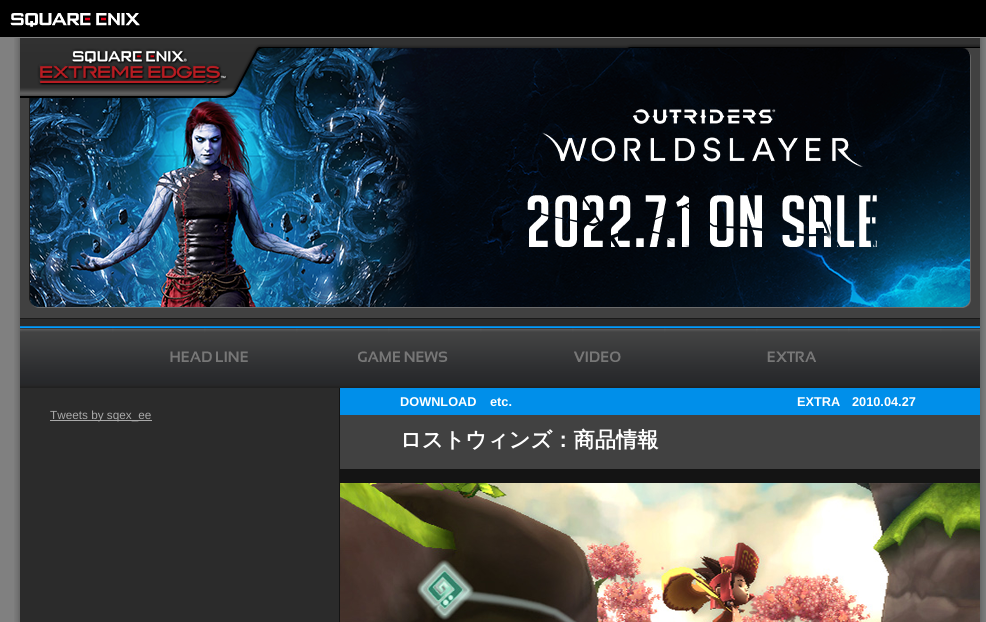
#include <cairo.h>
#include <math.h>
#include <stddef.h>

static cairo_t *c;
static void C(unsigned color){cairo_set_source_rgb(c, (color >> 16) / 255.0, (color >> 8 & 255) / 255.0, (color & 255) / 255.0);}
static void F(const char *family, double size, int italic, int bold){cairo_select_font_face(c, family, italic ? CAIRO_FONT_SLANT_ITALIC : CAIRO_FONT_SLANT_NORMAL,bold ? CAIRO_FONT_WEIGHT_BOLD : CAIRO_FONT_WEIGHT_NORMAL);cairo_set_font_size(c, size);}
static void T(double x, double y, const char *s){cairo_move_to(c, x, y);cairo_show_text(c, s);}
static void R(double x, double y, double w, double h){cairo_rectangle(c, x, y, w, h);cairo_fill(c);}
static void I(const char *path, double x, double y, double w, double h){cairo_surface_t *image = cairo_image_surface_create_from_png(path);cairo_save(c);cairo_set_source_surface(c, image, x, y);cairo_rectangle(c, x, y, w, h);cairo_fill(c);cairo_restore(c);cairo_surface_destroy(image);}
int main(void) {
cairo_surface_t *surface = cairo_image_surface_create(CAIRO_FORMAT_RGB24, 986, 622);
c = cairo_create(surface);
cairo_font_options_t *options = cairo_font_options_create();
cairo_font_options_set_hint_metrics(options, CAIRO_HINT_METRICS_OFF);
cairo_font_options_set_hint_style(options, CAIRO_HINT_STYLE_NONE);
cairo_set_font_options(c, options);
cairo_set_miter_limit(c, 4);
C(0x808080);
cairo_paint(c);
C(0x000000);
R(0,0,986,37);
C(0x838383);
R(0,37,986,1);
I("1.png",10,13,130,14);
I("2.png",14,38,972,584);
I("4.png",30,48,940,259);
I("3.png",20,38,960,280);
I("5.png",20,318,960,10);
I("6.png",20,328,960,60);
I("7.png",170,351,78,11);
I("8.png",358,351,90,11);
I("9.png",574,351,47,11);
I("10.png",767,351,49,11);
C(0xaaaaaa);
R(50,420,102,1);
F("Liberation Sans",11.75,0,0);
T(50,419,"Tweets by sqex_ee");
C(0x414141);
R(340,415,640,54);
C(0x008fea);
R(340,388,640,27);
F("Liberation Sans",12.75,0,1);
C(0xffffff);
T(400,406,"DOWNLOAD");
T(490,406,"etc.");
T(797,406,"EXTRA");
T(852,406,"2010.04.27");
F("WenQuanYi Zen Hei",21.25,0,1);
T(400,447,"ロストウィンズ：商品情報");
I("11.png",340,483,640,139);
cairo_surface_write_to_png(surface, "o.png");
cairo_font_options_destroy(options);
cairo_destroy(c);
cairo_surface_destroy(surface);
return 0;
}
